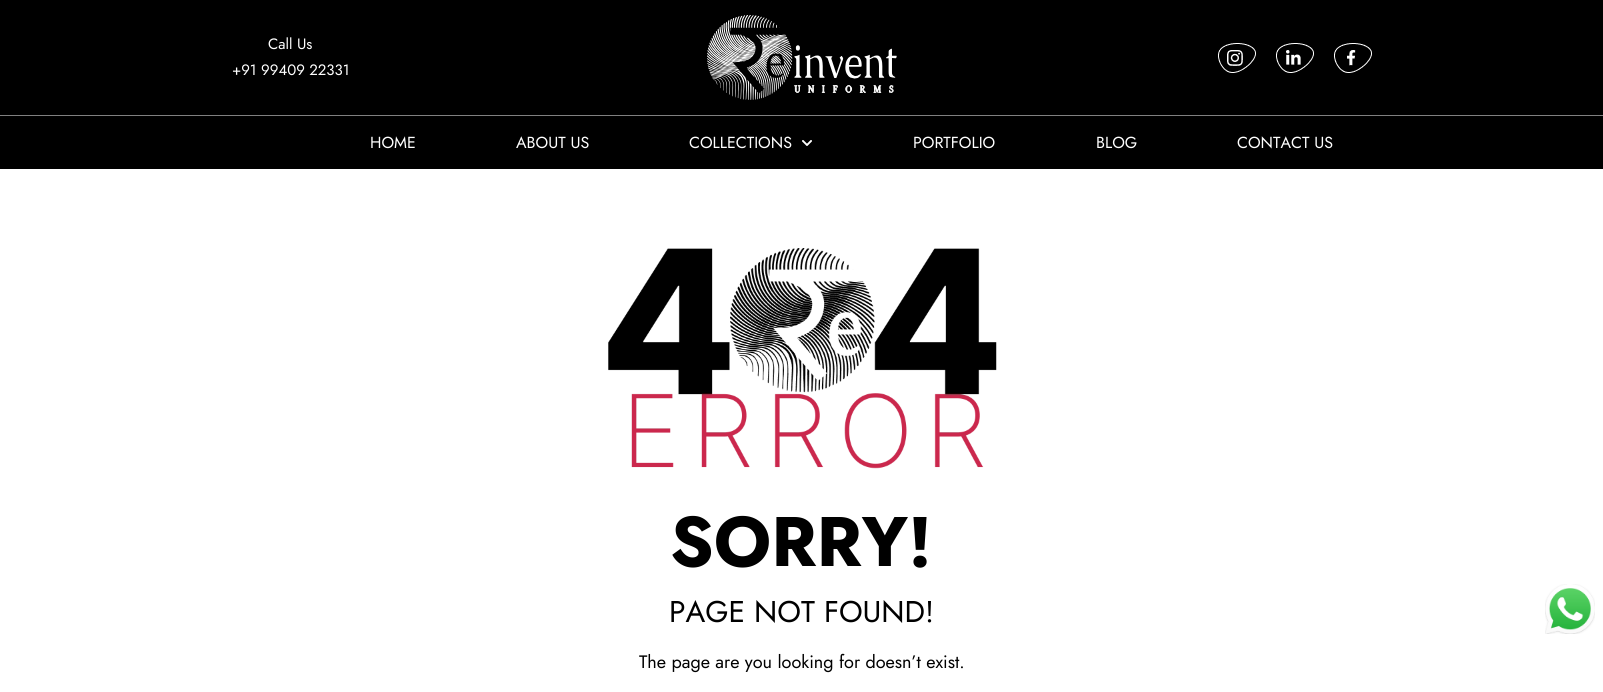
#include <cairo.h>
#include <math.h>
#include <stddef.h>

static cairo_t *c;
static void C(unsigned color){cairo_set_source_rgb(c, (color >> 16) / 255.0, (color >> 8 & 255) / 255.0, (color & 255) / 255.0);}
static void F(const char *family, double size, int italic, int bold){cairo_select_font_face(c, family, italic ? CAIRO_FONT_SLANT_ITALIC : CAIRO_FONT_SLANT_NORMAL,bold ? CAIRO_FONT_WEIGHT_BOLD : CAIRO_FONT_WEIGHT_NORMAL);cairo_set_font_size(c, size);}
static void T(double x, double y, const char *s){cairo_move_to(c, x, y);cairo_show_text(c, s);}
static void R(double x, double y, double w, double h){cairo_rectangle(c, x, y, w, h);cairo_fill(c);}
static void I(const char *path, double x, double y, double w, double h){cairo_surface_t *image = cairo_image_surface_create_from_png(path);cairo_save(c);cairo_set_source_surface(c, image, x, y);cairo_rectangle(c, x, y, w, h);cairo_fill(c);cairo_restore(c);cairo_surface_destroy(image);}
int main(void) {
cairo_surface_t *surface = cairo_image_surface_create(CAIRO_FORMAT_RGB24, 1603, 692);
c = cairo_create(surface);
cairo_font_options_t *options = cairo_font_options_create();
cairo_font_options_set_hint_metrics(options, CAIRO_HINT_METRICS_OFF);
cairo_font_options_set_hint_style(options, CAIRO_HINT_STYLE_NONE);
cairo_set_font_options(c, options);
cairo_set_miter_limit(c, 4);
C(0xffffff);
cairo_paint(c);
C(0x000000);
R(0,0,1603,115);
C(0x808080);
R(0,115,1603,1);
F("Jost",15,0,0);
C(0xffffff);
T(268,49,"Call Us");
T(232,75,"+91 99409 22331");
I("1.png",707,15,190,85);
I("2.png",1218,43,38,30);
I("3.png",1276,43,38,30);
I("4.png",1334,43,38,30);
C(0x000000);
R(0,116,1603,53);
F("Jost",16,0,0);
C(0xffffff);
T(370,148,"HOME");
T(516,148,"ABOUT US");
T(689,148,"COLLECTIONS");
I("5.png",802,140,10,6);
T(913,148,"PORTFOLIO");
T(1096,148,"BLOG");
T(1237,148,"CONTACT US");
I("6.png",608,248,389,221);
F("Jost",70,0,1);
C(0x000000);
T(670,566,"SORRY!");
F("Jost",30,0,0);
T(669,622,"PAGE NOT FOUND!");
F("Jost",18,0,0);
T(639,668,"The page are you looking for doesn’t exist.");
I("7.png",1545,584,50,50);
cairo_surface_write_to_png(surface, "o.png");
cairo_font_options_destroy(options);
cairo_destroy(c);
cairo_surface_destroy(surface);
return 0;
}
